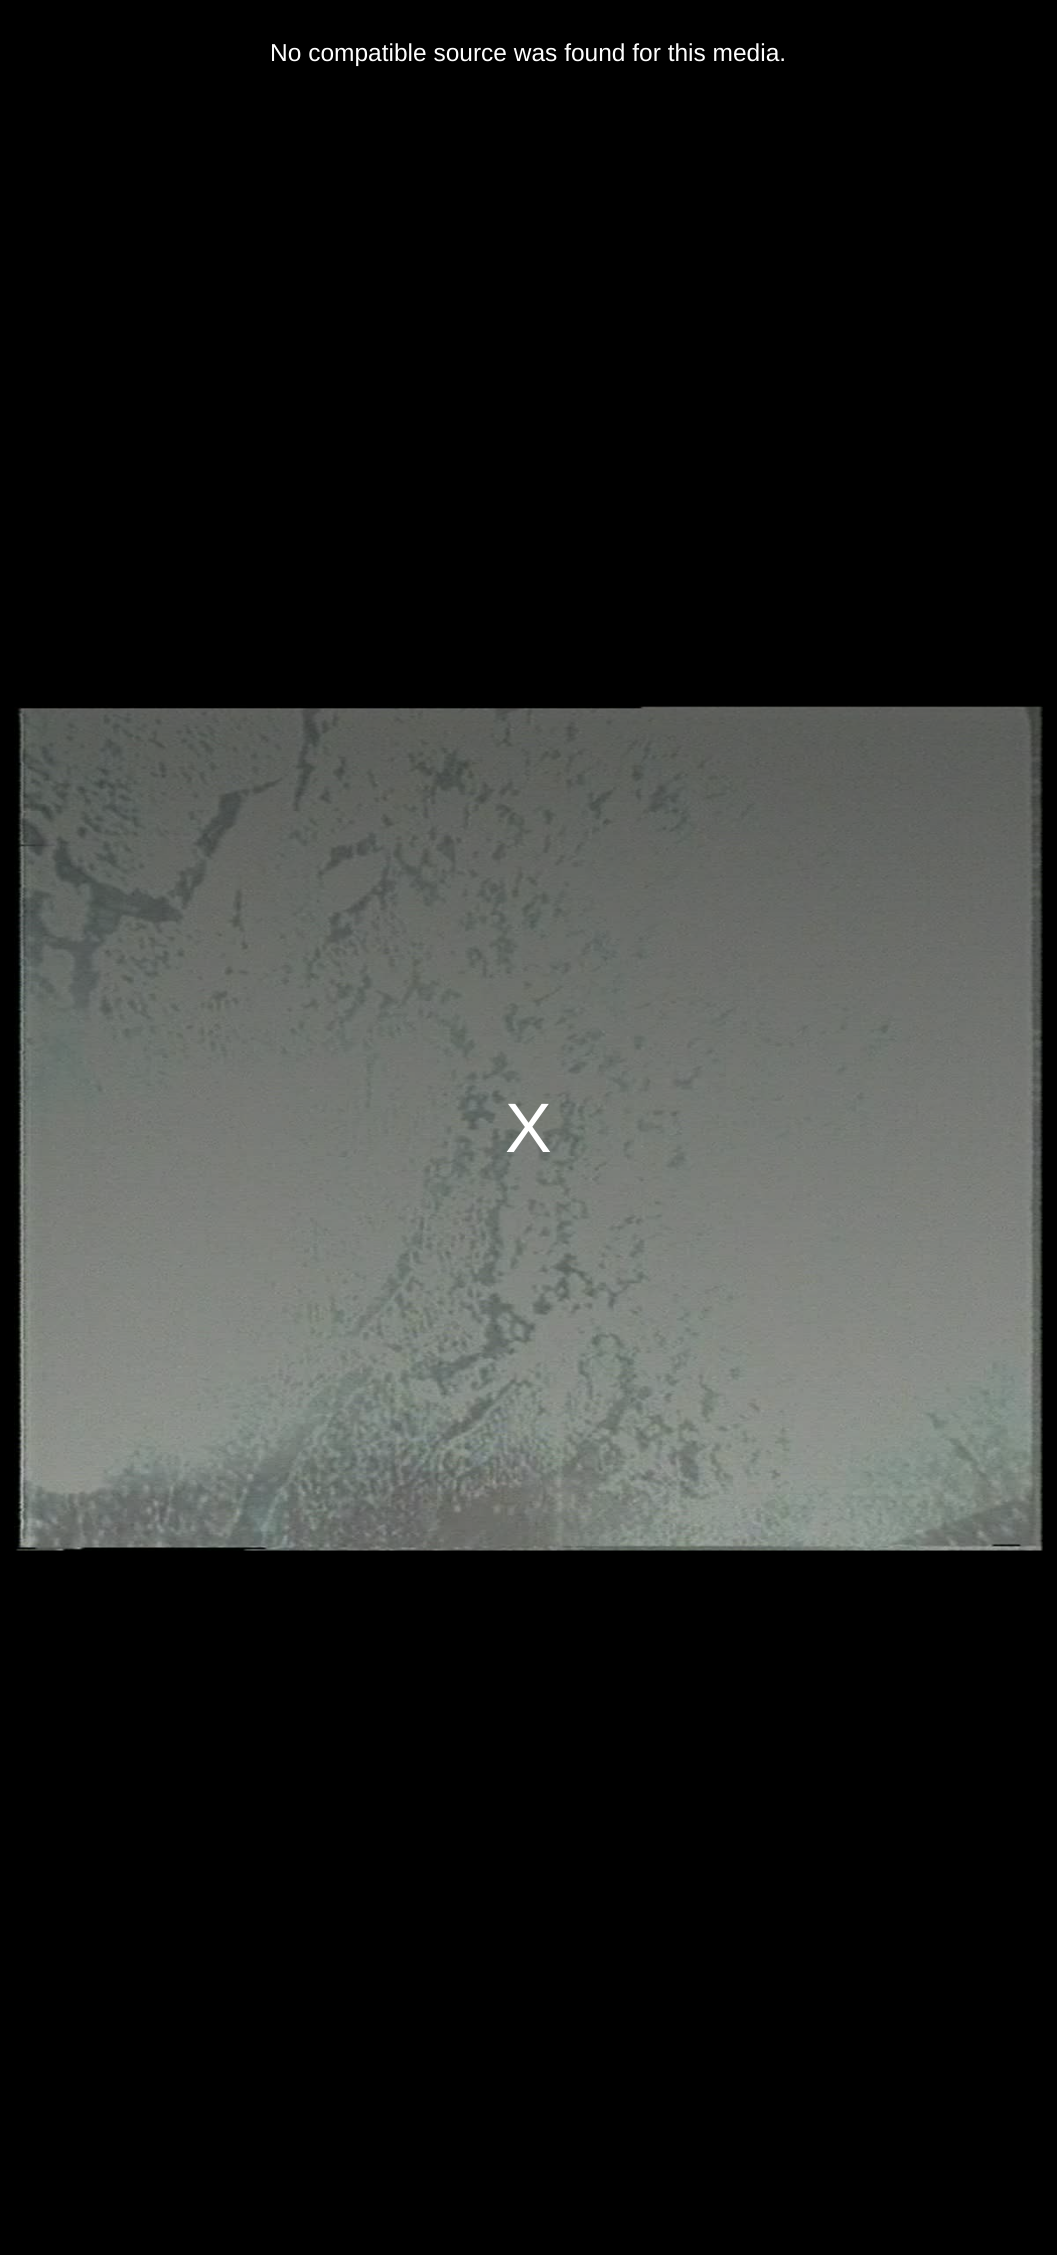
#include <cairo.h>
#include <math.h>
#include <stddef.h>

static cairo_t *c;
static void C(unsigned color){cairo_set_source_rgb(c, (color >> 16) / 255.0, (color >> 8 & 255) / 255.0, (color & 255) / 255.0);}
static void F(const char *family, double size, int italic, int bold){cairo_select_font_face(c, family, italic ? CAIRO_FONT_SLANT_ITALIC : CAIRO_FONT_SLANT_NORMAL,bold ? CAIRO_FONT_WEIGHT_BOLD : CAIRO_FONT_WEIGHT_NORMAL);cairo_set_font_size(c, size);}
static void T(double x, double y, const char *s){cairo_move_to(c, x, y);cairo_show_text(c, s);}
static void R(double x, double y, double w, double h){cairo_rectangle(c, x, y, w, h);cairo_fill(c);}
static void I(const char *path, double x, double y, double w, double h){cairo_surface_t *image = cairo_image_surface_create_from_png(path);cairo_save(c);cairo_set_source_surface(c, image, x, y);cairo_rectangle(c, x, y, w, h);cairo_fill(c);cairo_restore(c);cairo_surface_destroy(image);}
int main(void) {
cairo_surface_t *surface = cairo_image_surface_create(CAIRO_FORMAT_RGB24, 1057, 2255);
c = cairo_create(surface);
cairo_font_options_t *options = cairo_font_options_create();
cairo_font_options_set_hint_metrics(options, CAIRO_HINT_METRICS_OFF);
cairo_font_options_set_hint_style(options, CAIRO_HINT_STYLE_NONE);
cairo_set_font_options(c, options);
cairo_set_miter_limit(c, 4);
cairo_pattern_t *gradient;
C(0x000000);
cairo_paint(c);
I("1.png",14,705,1029,846);
gradient = cairo_pattern_create_linear(528,0,529,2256);
cairo_pattern_add_color_stop_rgba(gradient,0,0,0,0,.8);
cairo_pattern_add_color_stop_rgba(gradient,1,0,0,0,0);
cairo_set_source(c,gradient);
cairo_pattern_destroy(gradient);
R(14,705,1029,846);
F("Liberation Sans",24.5,0,0);
C(0xffffff);
T(270,61,"No compatible source was found for this media.");
F("Liberation Sans",70,0,0);
T(505,1152,"X");
cairo_surface_write_to_png(surface, "o.png");
cairo_font_options_destroy(options);
cairo_destroy(c);
cairo_surface_destroy(surface);
return 0;
}
